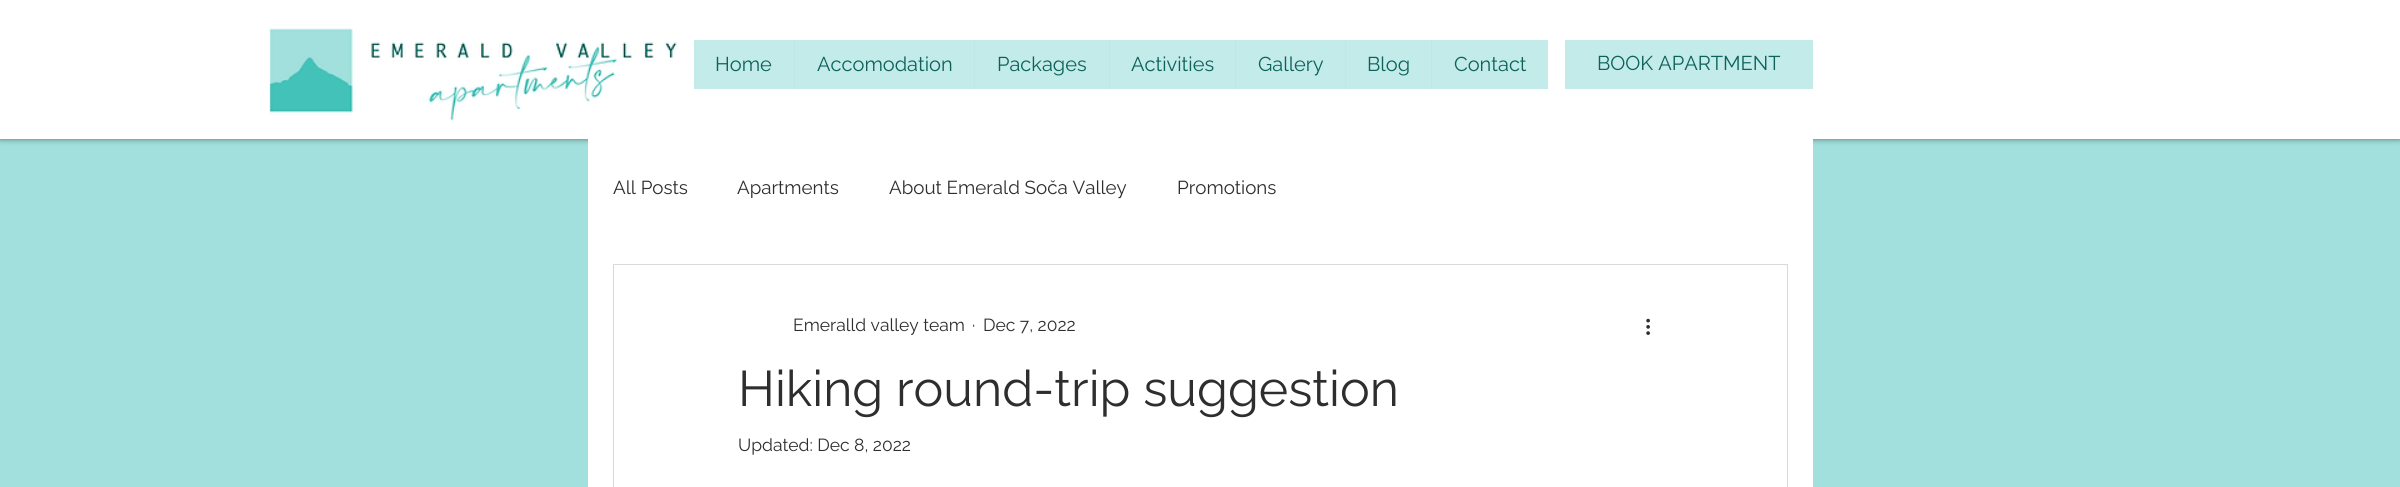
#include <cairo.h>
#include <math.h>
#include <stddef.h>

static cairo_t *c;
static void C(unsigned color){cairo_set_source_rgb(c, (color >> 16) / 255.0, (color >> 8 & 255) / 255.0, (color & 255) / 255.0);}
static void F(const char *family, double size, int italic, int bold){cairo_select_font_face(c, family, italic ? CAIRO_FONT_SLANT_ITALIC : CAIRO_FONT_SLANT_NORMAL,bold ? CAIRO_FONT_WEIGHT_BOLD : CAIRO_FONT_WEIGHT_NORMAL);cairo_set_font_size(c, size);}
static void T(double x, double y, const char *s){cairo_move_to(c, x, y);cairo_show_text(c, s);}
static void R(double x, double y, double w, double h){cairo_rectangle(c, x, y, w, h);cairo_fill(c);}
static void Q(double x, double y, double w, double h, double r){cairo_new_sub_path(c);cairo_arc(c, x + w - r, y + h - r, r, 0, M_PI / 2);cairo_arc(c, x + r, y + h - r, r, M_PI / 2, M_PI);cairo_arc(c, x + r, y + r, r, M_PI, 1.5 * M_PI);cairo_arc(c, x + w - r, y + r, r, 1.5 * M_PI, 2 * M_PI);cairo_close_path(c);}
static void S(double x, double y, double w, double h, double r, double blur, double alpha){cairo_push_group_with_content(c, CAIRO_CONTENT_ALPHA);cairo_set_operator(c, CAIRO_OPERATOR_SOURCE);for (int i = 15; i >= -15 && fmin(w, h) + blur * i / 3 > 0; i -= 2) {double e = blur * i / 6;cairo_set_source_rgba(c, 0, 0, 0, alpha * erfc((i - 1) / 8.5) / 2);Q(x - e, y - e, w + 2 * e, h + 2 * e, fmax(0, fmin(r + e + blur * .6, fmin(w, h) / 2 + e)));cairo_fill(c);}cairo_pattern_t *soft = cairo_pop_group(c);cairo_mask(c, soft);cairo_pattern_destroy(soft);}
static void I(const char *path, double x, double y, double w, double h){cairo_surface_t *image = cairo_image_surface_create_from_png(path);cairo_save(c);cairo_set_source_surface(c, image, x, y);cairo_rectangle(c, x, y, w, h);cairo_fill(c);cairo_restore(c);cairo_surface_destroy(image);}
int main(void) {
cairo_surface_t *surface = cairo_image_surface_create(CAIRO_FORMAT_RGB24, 2400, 487);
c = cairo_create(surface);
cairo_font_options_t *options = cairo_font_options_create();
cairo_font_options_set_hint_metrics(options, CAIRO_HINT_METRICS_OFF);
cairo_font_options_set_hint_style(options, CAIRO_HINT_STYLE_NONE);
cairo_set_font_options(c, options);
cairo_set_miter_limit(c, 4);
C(0xa1e0dc);
cairo_paint(c);
C(0x000000);
S(0,0,2400,139,0,3,.5);
C(0xffffff);
R(0,0,2400,139);
I("1.png",269,28,410,93);
C(0xc3ebe9);
R(694,40,854,49);
F("Raleway",20,0,0);
C(0x0c625a);
T(715,71,"Home");
C(0xbee7e5);
R(794,40,1,49);
C(0x0c625a);
T(817,71,"Accomodation");
C(0xbee7e5);
R(974,40,1,49);
C(0x0c625a);
T(997,71,"Packages");
C(0xbee7e5);
R(1109,40,1,49);
C(0x0c625a);
T(1131,71,"Activities");
C(0xbee7e5);
R(1235,40,1,49);
C(0x0c625a);
T(1258,71,"Gallery");
C(0xbee7e5);
R(1345,40,1,49);
C(0x0c625a);
T(1367,71,"Blog");
C(0xbee7e5);
R(1431,40,1,49);
C(0x0c625a);
T(1454,71,"Contact");
C(0xc3ebe9);
R(1565,40,248,49);
C(0x0c625a);
T(1597,70,"BOOK APARTMENT");
C(0xffffff);
R(588,139,1225,348);
F("Raleway",18.75,0,0);
C(0x2f2e2e);
T(613,194,"All Posts");
T(737,194,"Apartments");
T(889,194,"About Emerald Soča Valley");
T(1177,194,"Promotions");
cairo_rectangle(c,613.5,264.5,1174,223);
C(0xd9d9d9);
cairo_set_line_width(c,1);
cairo_stroke(c);
F("Raleway",17.5,0,0);
C(0x2f2e2e);
T(793,331,"Emeralld valley team");
T(972,331,"·");
T(983,331,"Dec 7, 2022");
I("2.png",1646,318,4,17);
F("Raleway",50,0,0);
T(738,406,"Hiking round-trip suggestion");
F("Raleway",17.5,0,0);
T(738,451,"Updated: Dec 8, 2022");
cairo_surface_write_to_png(surface, "o.png");
cairo_font_options_destroy(options);
cairo_destroy(c);
cairo_surface_destroy(surface);
return 0;
}
